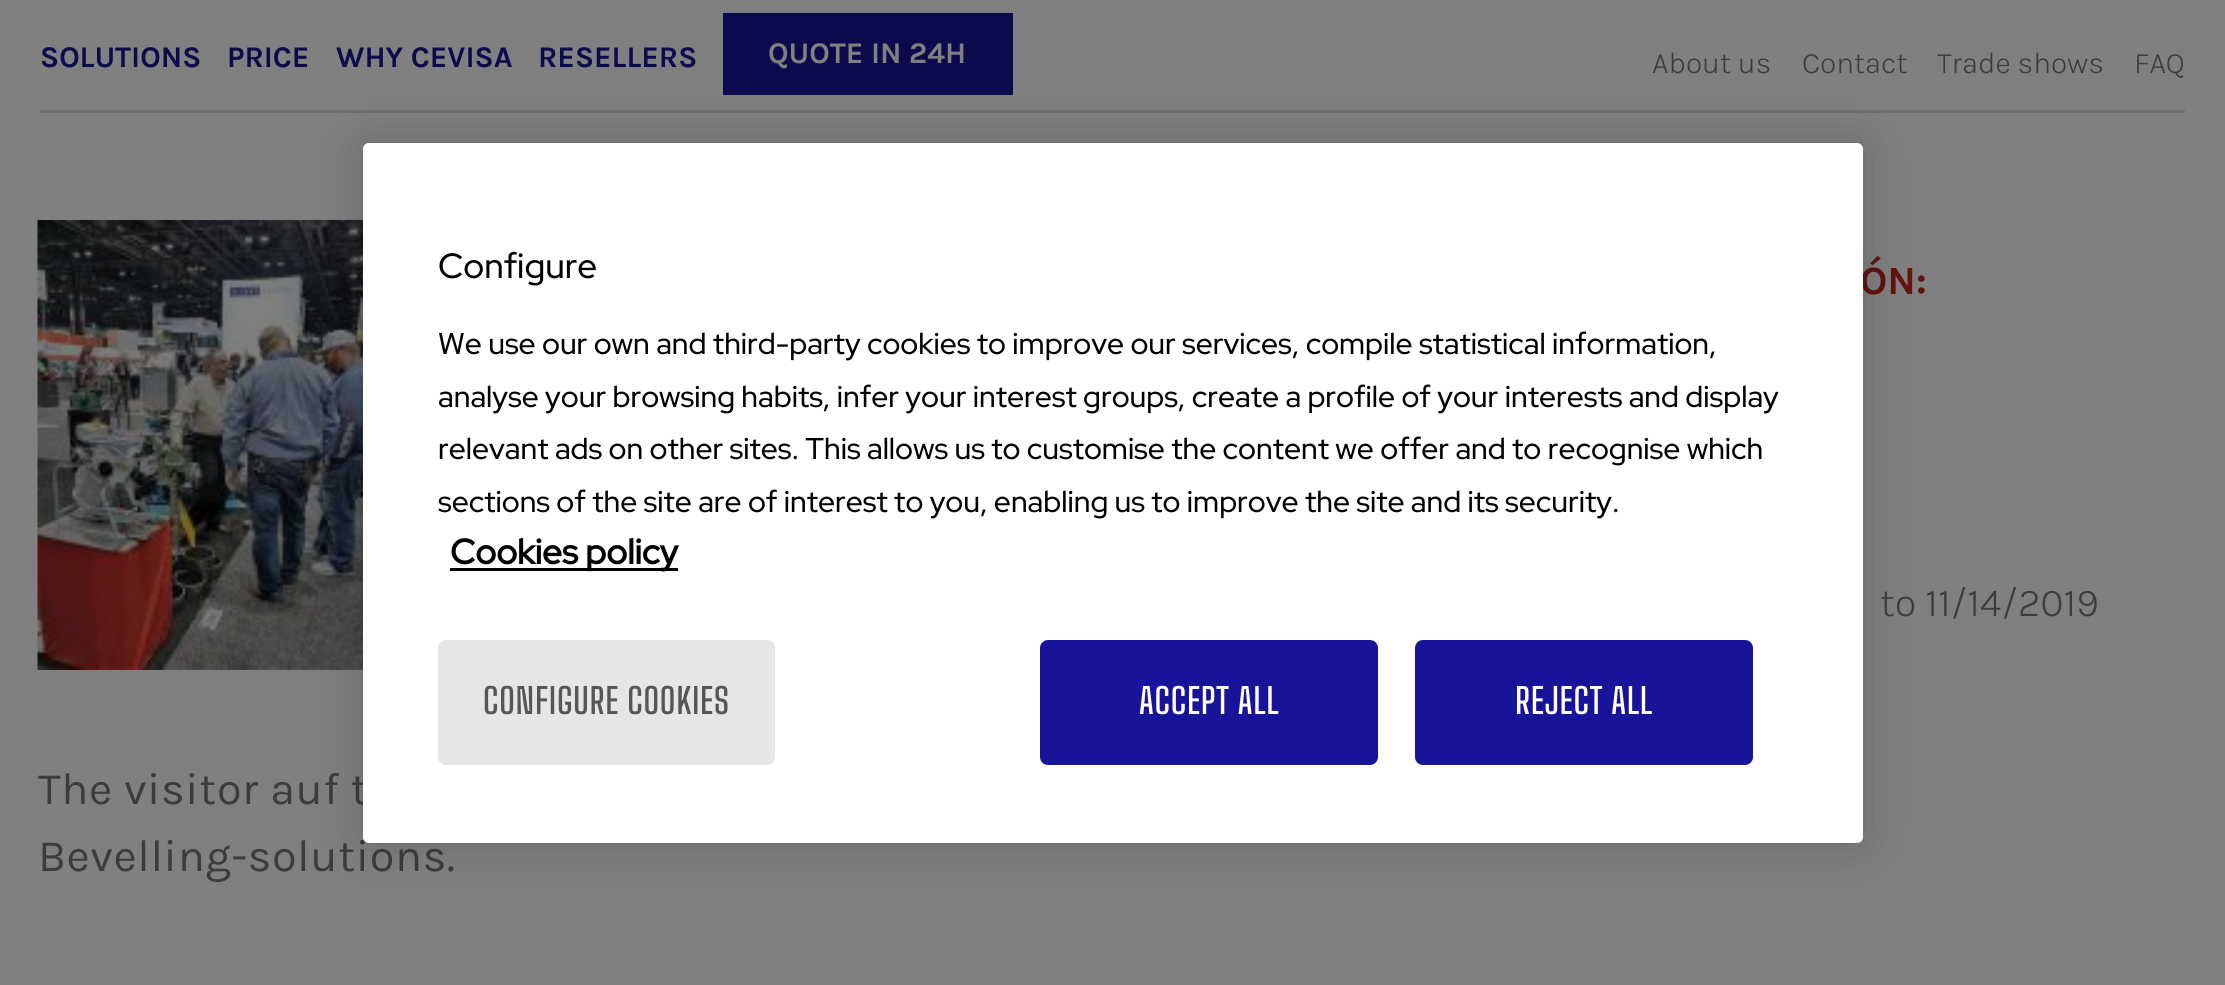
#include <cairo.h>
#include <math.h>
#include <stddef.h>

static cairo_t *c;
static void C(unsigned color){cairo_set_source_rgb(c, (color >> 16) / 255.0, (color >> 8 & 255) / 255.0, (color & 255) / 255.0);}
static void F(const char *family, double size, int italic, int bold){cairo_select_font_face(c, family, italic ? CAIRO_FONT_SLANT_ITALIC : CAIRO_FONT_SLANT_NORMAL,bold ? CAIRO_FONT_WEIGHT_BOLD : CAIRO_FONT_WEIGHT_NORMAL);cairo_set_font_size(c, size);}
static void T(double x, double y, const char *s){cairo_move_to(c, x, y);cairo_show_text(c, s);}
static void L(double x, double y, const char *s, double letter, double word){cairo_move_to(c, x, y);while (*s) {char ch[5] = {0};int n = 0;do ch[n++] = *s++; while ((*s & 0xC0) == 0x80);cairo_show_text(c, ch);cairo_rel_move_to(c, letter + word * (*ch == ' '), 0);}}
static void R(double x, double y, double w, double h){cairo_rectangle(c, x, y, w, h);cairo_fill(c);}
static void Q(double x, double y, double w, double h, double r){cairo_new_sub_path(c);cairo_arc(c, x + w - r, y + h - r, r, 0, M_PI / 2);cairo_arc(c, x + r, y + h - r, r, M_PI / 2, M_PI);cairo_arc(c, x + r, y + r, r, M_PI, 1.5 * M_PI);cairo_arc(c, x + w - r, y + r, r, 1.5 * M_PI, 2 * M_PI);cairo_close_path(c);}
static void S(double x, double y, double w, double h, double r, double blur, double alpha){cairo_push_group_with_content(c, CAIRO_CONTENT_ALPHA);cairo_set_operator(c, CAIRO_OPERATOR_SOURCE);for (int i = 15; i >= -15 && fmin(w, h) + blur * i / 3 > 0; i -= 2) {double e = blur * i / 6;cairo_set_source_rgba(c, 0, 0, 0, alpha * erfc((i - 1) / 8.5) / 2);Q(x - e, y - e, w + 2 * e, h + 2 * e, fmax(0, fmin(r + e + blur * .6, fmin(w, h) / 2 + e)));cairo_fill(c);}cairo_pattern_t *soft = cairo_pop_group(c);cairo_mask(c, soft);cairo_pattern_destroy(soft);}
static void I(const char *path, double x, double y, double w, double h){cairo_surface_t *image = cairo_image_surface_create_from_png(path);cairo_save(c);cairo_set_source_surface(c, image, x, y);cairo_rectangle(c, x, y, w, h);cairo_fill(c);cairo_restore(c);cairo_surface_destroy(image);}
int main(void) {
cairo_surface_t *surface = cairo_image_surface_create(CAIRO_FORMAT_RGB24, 2225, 985);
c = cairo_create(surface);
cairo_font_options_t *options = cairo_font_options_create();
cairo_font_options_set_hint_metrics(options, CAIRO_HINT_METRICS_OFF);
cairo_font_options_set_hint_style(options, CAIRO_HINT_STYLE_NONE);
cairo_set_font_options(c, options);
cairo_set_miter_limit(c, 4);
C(0x808080);
cairo_paint(c);
C(0x707070);
R(40,110,2145,3);
F("Karla",30,0,1);
C(0x0c0a4d);
T(40,67,"SOLUTIONS");
T(227,67,"PRICE");
T(336,67,"WHY CEVISA");
T(538,67,"RESELLERS");
R(723,13,290,82);
C(0x808080);
T(768,63,"QUOTE IN 24H");
F("Karla Light",30,0,0);
C(0x3c3c3c);
T(1652,73,"About us");
T(1802,73,"Contact");
T(1937,73,"Trade shows");
T(2134,73,"FAQ");
F("Karla",40,0,1);
C(0x61130f);
T(1860,294,"ÓN:");
F("Karla Light",40,0,0);
C(0x3c3c3c);
T(1880,616,"to 11/14/2019");
I("1.png",37,220,326,450);
F("Karla",45,0,0);
L(38,804,"The visitor auf t",.6,0);
L(38,871,"Bevelling-solutions.",.6,0);
C(0x000000);
S(363,143,1500,700,6,22.5,.2);
C(0xffffff);
Q(363,143,1500,700,6);
cairo_fill(c);
F("Red Hat Display Medium",35,0,0);
C(0x000000);
T(438,278,"Configure");
F("Red Hat Display Medium",30,0,0);
T(438,354,"We use our own and third-party cookies to improve our services, compile statistical information,");
T(438,407,"analyse your browsing habits, infer your interest groups, create a profile of your interests and display");
T(438,459,"relevant ads on other sites. This allows us to customise the content we offer and to recognise which");
T(438,512,"sections of the site are of interest to you, enabling us to improve the site and its security.");
R(450,568,228,3);
F("Red Hat Display",35,0,1);
T(450,564,"Cookies policy");
C(0xe6e6e6);
Q(438,640,337,125,8);
cairo_fill(c);
F("Big Shoulders Text Thin",35,0,0);
C(0x565656);
L(483,714,"CONFIGURE COOKIES",.75,0);
C(0x18149a);
Q(1041.5,641.5,335,122,6.5);
cairo_fill_preserve(c);
cairo_set_line_width(c,3);
cairo_stroke(c);
C(0xffffff);
L(1139,714,"ACCEPT ALL",.75,0);
C(0x18149a);
Q(1416.5,641.5,335,122,6.5);
cairo_fill_preserve(c);
cairo_stroke(c);
C(0xffffff);
L(1515,714,"REJECT ALL",.75,0);
cairo_surface_write_to_png(surface, "o.png");
cairo_font_options_destroy(options);
cairo_destroy(c);
cairo_surface_destroy(surface);
return 0;
}
